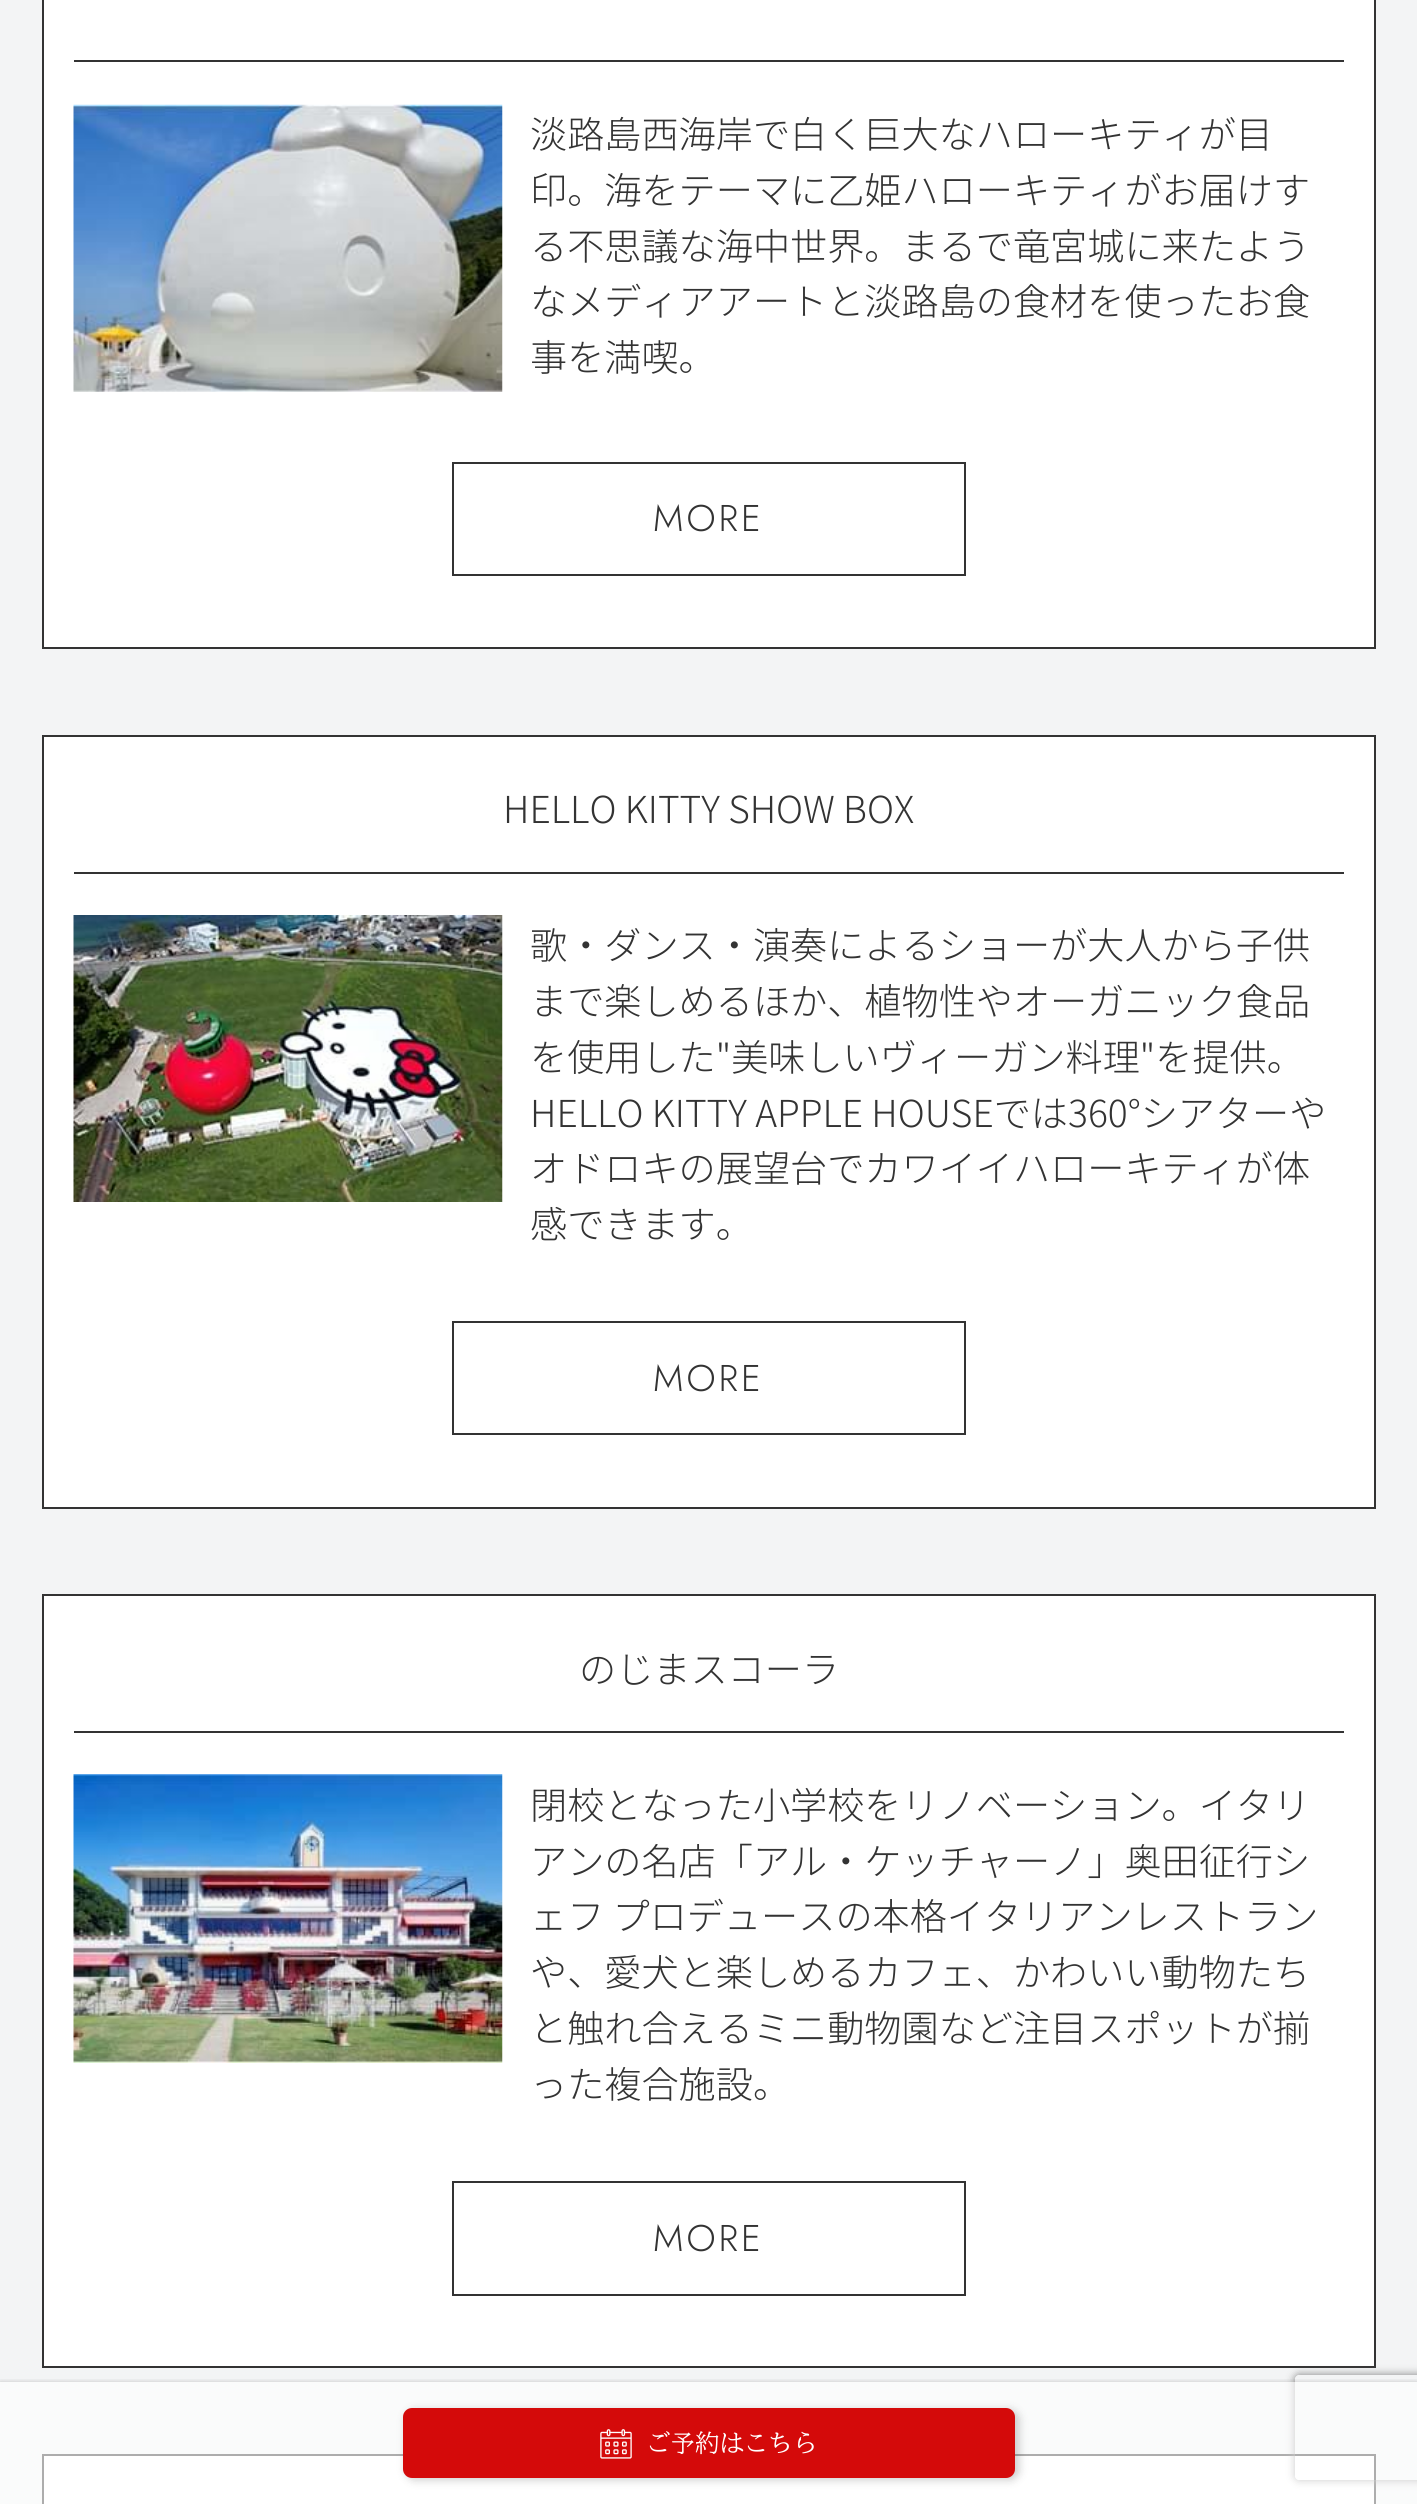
#include <cairo.h>
#include <math.h>
#include <stddef.h>

static cairo_t *c;
static void C(unsigned color){cairo_set_source_rgb(c, (color >> 16) / 255.0, (color >> 8 & 255) / 255.0, (color & 255) / 255.0);}
static void F(const char *family, double size, int italic, int bold){cairo_select_font_face(c, family, italic ? CAIRO_FONT_SLANT_ITALIC : CAIRO_FONT_SLANT_NORMAL,bold ? CAIRO_FONT_WEIGHT_BOLD : CAIRO_FONT_WEIGHT_NORMAL);cairo_set_font_size(c, size);}
static void T(double x, double y, const char *s){cairo_move_to(c, x, y);cairo_show_text(c, s);}
static void L(double x, double y, const char *s, double letter, double word){cairo_move_to(c, x, y);while (*s) {char ch[5] = {0};int n = 0;do ch[n++] = *s++; while ((*s & 0xC0) == 0x80);cairo_show_text(c, ch);cairo_rel_move_to(c, letter + word * (*ch == ' '), 0);}}
static void R(double x, double y, double w, double h){cairo_rectangle(c, x, y, w, h);cairo_fill(c);}
static void Q(double x, double y, double w, double h, double r){cairo_new_sub_path(c);cairo_arc(c, x + w - r, y + h - r, r, 0, M_PI / 2);cairo_arc(c, x + r, y + h - r, r, M_PI / 2, M_PI);cairo_arc(c, x + r, y + r, r, M_PI, 1.5 * M_PI);cairo_arc(c, x + w - r, y + r, r, 1.5 * M_PI, 2 * M_PI);cairo_close_path(c);}
static void S(double x, double y, double w, double h, double r, double blur, double alpha){cairo_push_group_with_content(c, CAIRO_CONTENT_ALPHA);cairo_set_operator(c, CAIRO_OPERATOR_SOURCE);for (int i = 15; i >= -15 && fmin(w, h) + blur * i / 3 > 0; i -= 2) {double e = blur * i / 6;cairo_set_source_rgba(c, 0, 0, 0, alpha * erfc((i - 1) / 8.5) / 2);Q(x - e, y - e, w + 2 * e, h + 2 * e, fmax(0, fmin(r + e + blur * .6, fmin(w, h) / 2 + e)));cairo_fill(c);}cairo_pattern_t *soft = cairo_pop_group(c);cairo_mask(c, soft);cairo_pattern_destroy(soft);}
static void I(const char *path, double x, double y, double w, double h){cairo_surface_t *image = cairo_image_surface_create_from_png(path);cairo_save(c);cairo_set_source_surface(c, image, x, y);cairo_rectangle(c, x, y, w, h);cairo_fill(c);cairo_restore(c);cairo_surface_destroy(image);}
int main(void) {
cairo_surface_t *surface = cairo_image_surface_create(CAIRO_FORMAT_RGB24, 1417, 2504);
c = cairo_create(surface);
cairo_font_options_t *options = cairo_font_options_create();
cairo_font_options_set_hint_metrics(options, CAIRO_HINT_METRICS_OFF);
cairo_font_options_set_hint_style(options, CAIRO_HINT_STYLE_NONE);
cairo_set_font_options(c, options);
cairo_set_miter_limit(c, 4);
C(0xf3f4f5);
cairo_paint(c);
C(0xffffff);
cairo_rectangle(c,43,-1,1332,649);
cairo_fill_preserve(c);
C(0x333333);
cairo_stroke(c);
R(74,60,1270,2);
I("1.png",73,104,430,288);
F("Noto Sans JP Light",37.15,0,0);
T(530,148,"淡路島西海岸で白く巨大なハローキティが目");
T(530,204,"印。海をテーマに乙姫ハローキティがお届けす");
T(530,260,"る不思議な海中世界。まるで竜宮城に来たよう");
T(530,315,"なメディアアートと淡路島の食材を使ったお食");
T(530,371,"事を満喫。");
cairo_rectangle(c,453,463,512,112);
cairo_stroke(c);
F("Jost Light",37.15,0,0);
L(653,531,"MORE",3,0);
C(0xffffff);
cairo_rectangle(c,43,736,1332,772);
cairo_fill_preserve(c);
C(0x333333);
cairo_stroke(c);
R(74,872,1270,2);
F("Noto Sans JP Light",37.15,0,0);
T(503,823,"HELLO KITTY SHOW BOX");
I("2.png",73,915,430,287);
T(530,959,"歌・ダンス・演奏によるショーが大人から子供");
T(530,1015,"まで楽しめるほか、植物性やオーガニック食品");
T(530,1071,"を使用した\"美味しいヴィーガン料理\"を提供。");
T(530,1127,"HELLO KITTY APPLE HOUSEでは360°シアターや");
T(530,1182,"オドロキの展望台でカワイイハローキティが体");
T(530,1238,"感できます。");
cairo_rectangle(c,453,1322,512,112);
cairo_stroke(c);
F("Jost Light",37.15,0,0);
L(653,1391,"MORE",3,0);
C(0xffffff);
cairo_rectangle(c,43,1595,1332,772);
cairo_fill_preserve(c);
C(0x333333);
cairo_stroke(c);
R(74,1731,1270,2);
F("Noto Sans JP Light",37.15,0,0);
T(579,1683,"のじまスコーラ");
I("3.png",73,1774,430,289);
T(530,1819,"閉校となった小学校をリノベーション。イタリ");
T(530,1875,"アンの名店「アル・ケッチャーノ」奥田征行シ");
T(530,1930,"ェフ プロデュースの本格イタリアンレストラン");
T(530,1986,"や、愛犬と楽しめるカフェ、かわいい動物たち");
T(530,2042,"と触れ合えるミニ動物園など注目スポットが揃");
T(530,2098,"った複合施設。");
cairo_rectangle(c,453,2182,512,113);
cairo_stroke(c);
F("Jost Light",37.15,0,0);
L(653,2251,"MORE",3,0);
C(0xffffff);
cairo_rectangle(c,43,2455,1332,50);
cairo_fill_preserve(c);
C(0x333333);
cairo_stroke(c);
cairo_save(c);
cairo_rectangle(c,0,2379,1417,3);
cairo_clip(c);
C(0x000000);
S(0,2382,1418,122,0,2.5,.2);
cairo_restore(c);
cairo_save(c);
cairo_set_fill_rule(c,CAIRO_FILL_RULE_EVEN_ODD);
cairo_new_path(c);
cairo_move_to(c,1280,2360);
cairo_line_to(c,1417,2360);
cairo_line_to(c,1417,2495);
cairo_line_to(c,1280,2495);
cairo_close_path(c);
cairo_move_to(c,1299,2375);
cairo_line_to(c,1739,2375);
cairo_curve_to(c,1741,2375,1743,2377,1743,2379);
cairo_line_to(c,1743,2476);
cairo_curve_to(c,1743,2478,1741,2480,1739,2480);
cairo_line_to(c,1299,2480);
cairo_curve_to(c,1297,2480,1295,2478,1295,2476);
cairo_line_to(c,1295,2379);
cairo_curve_to(c,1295,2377,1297,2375,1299,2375);
cairo_close_path(c);
cairo_clip(c);
C(0x808080);
S(1295,2375,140,105,4,4.5,1);
cairo_restore(c);
cairo_set_source_rgba(c,1,1,1,0.6);
R(0,2382,1417,122);
C(0x000000);
S(406,2410,613,70,9,4.5,.2);
C(0xd40a0a);
Q(403,2408,612,70,9);
cairo_fill(c);
I("4.png",600,2429,32,30);
F("BIZ UDMincho",24.5,0,0);
C(0xffffff);
T(646,2452,"ご予約はこちら");
cairo_surface_write_to_png(surface, "o.png");
cairo_font_options_destroy(options);
cairo_destroy(c);
cairo_surface_destroy(surface);
return 0;
}
